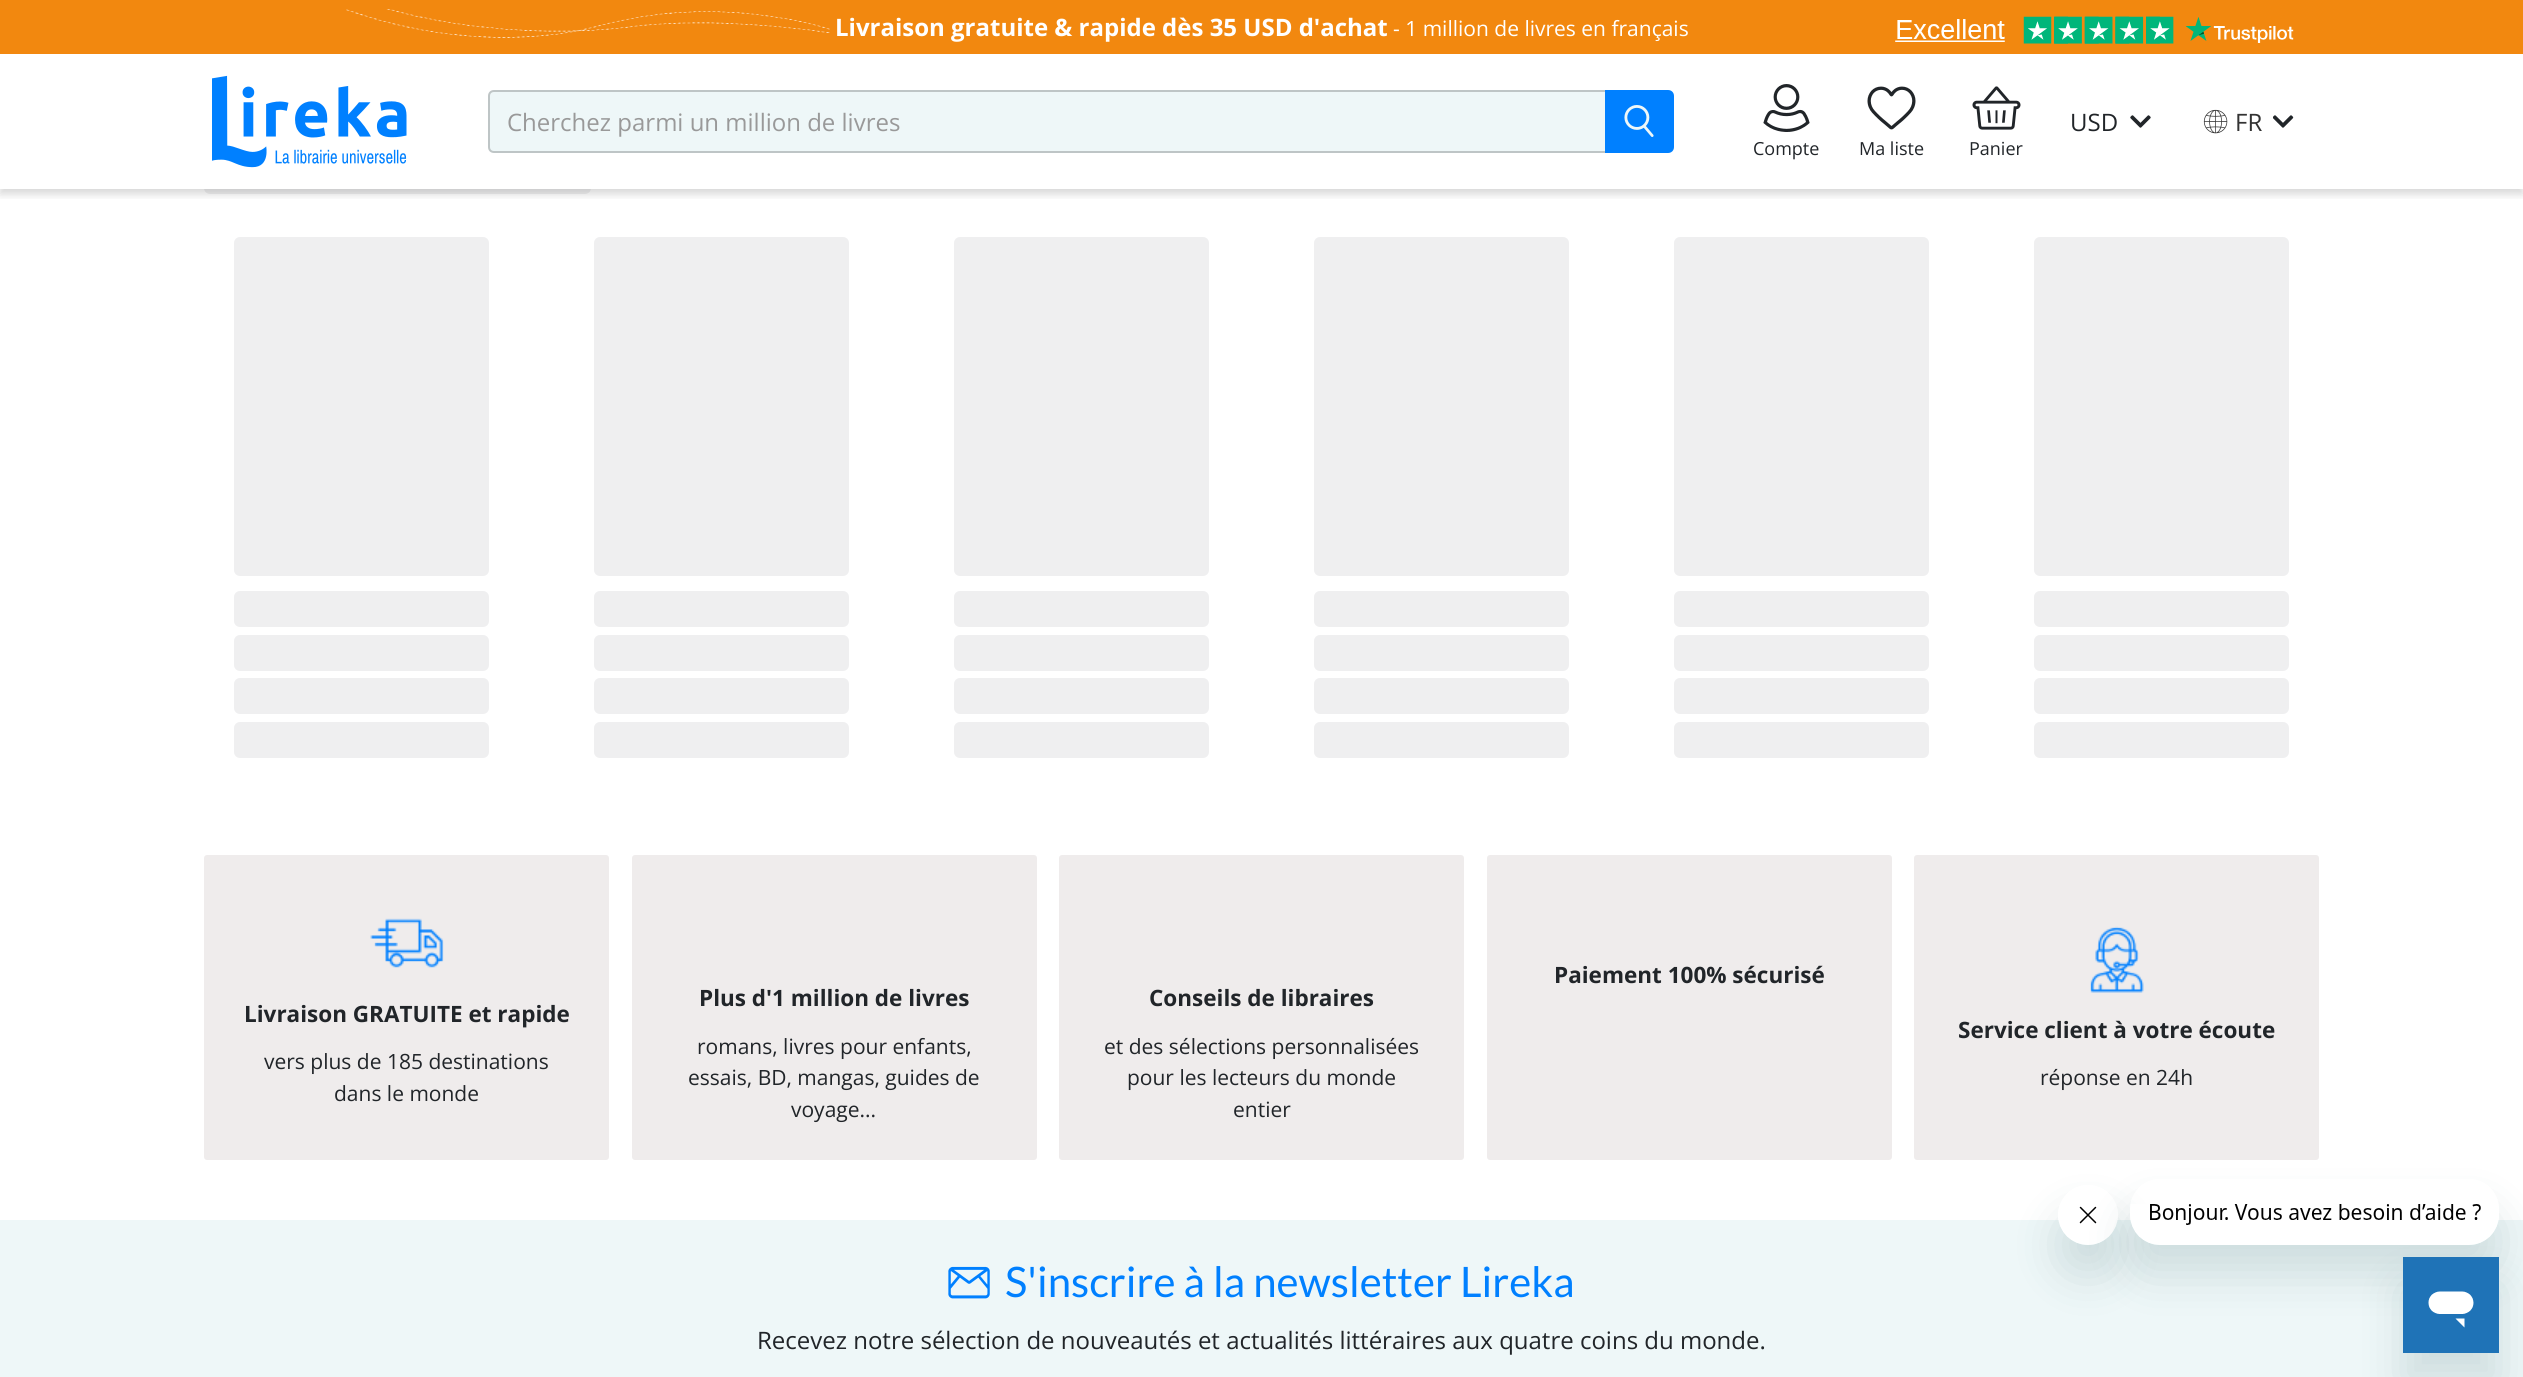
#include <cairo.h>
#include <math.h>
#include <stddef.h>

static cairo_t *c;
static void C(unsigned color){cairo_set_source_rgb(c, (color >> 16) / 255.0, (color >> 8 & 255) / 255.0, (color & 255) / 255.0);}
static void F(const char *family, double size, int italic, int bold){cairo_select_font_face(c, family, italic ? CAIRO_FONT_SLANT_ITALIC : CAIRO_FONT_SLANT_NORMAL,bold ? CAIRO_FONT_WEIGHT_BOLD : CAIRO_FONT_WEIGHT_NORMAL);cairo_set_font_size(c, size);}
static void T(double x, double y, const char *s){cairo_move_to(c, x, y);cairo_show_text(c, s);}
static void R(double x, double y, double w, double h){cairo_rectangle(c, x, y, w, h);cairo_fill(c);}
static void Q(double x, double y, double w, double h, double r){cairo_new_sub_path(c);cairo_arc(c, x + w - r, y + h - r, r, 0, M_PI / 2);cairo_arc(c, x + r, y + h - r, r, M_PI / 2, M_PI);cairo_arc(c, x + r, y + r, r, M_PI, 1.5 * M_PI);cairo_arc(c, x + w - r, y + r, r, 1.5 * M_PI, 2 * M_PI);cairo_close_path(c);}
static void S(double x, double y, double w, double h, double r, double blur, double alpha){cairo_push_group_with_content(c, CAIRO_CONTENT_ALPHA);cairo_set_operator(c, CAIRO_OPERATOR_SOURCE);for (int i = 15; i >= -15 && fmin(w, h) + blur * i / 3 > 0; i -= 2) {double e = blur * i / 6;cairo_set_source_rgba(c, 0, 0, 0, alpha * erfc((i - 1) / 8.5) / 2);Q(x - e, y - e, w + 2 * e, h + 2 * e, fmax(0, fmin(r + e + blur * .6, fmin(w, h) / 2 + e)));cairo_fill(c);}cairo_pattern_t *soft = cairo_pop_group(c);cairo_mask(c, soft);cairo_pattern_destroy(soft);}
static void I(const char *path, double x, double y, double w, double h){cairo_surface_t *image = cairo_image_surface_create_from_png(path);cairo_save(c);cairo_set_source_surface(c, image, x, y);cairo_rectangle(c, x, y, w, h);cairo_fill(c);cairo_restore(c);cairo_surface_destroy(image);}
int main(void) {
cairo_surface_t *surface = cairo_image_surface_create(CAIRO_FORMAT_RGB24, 2523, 1377);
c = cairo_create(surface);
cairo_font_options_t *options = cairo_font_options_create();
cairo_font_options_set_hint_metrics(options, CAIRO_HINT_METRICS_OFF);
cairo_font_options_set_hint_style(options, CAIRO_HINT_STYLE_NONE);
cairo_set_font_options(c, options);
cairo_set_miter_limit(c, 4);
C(0xffffff);
cairo_paint(c);
C(0xefeff0);
Q(204,144,387,50,6);
cairo_fill(c);
C(0xffffff);
R(204,144,387,45);
C(0xf2880f);
R(0,0,2523,54);
I("1.png",346,9,484,29);
F("Open Sans",24,0,1);
C(0xffffff);
T(835,36,"Livraison gratuite & rapide dès 35 USD d'achat");
F("Open Sans",21,0,0);
T(1393,36,"- 1 million de livres en français");
I("2.png",1895,16,399,28);
cairo_save(c);
cairo_rectangle(c,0,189,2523,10);
cairo_clip(c);
C(0x000000);
S(0,59,2523,135,0,4.5,.16);
cairo_restore(c);
I("3.png",212,75,195,93);
C(0xeef7f8);
cairo_new_path(c);
cairo_move_to(c,494,91);
cairo_line_to(c,1606,91);
cairo_line_to(c,1606,152);
cairo_line_to(c,494,152);
cairo_curve_to(c,491,152,489,150,489,147);
cairo_line_to(c,489,96);
cairo_curve_to(c,489,93,491,91,494,91);
cairo_close_path(c);
cairo_fill_preserve(c);
C(0xbec5c6);
cairo_stroke(c);
F("Open Sans",24,0,0);
C(0x999999);
T(507,131,"Cherchez parmi un million de livres");
C(0x0080ff);
cairo_new_path(c);
cairo_move_to(c,1605,90);
cairo_line_to(c,1668,90);
cairo_curve_to(c,1671.5,90,1674,92.5,1674,96);
cairo_line_to(c,1674,147);
cairo_curve_to(c,1674,150.5,1671.5,153,1668,153);
cairo_line_to(c,1605,153);
cairo_close_path(c);
cairo_fill(c);
I("4.png",1624,105,30,32);
C(0x212529);
T(2070,131,"USD");
I("5.png",2130,115,21,13);
I("6.png",2203,109,25,25);
C(0x333333);
T(2235,131,"FR");
I("7.png",2273,115,21,13);
I("8.png",1763,84,47,48);
F("Open Sans",18,0,0);
C(0x212529);
T(1753,155,"Compte");
I("9.png",1867,86,49,44);
T(1859,155,"Ma liste");
I("10.png",1972,86,49,44);
T(1969,155,"Panier");
C(0xefeff0);
Q(234,237,255,339,6);
cairo_fill(c);
Q(234,591,255,36,6);
cairo_fill(c);
Q(234,635,255,36,6);
cairo_fill(c);
Q(234,678,255,36,6);
cairo_fill(c);
Q(234,722,255,36,6);
cairo_fill(c);
Q(594,237,255,339,6);
cairo_fill(c);
Q(594,591,255,36,6);
cairo_fill(c);
Q(594,635,255,36,6);
cairo_fill(c);
Q(594,678,255,36,6);
cairo_fill(c);
Q(594,722,255,36,6);
cairo_fill(c);
Q(954,237,255,339,6);
cairo_fill(c);
Q(954,591,255,36,6);
cairo_fill(c);
Q(954,635,255,36,6);
cairo_fill(c);
Q(954,678,255,36,6);
cairo_fill(c);
Q(954,722,255,36,6);
cairo_fill(c);
Q(1314,237,255,339,6);
cairo_fill(c);
Q(1314,591,255,36,6);
cairo_fill(c);
Q(1314,635,255,36,6);
cairo_fill(c);
Q(1314,678,255,36,6);
cairo_fill(c);
Q(1314,722,255,36,6);
cairo_fill(c);
Q(1674,237,255,339,6);
cairo_fill(c);
Q(1674,591,255,36,6);
cairo_fill(c);
Q(1674,635,255,36,6);
cairo_fill(c);
Q(1674,678,255,36,6);
cairo_fill(c);
Q(1674,722,255,36,6);
cairo_fill(c);
Q(2034,237,255,339,6);
cairo_fill(c);
Q(2034,591,255,36,6);
cairo_fill(c);
Q(2034,635,255,36,6);
cairo_fill(c);
Q(2034,678,255,36,6);
cairo_fill(c);
Q(2034,722,255,36,6);
cairo_fill(c);
C(0xefecec);
Q(1487,855,405,305,3);
cairo_fill(c);
F("Open Sans",22.5,0,1);
C(0x212529);
T(1554,983,"Paiement 100% sécurisé");
C(0xefecec);
Q(204,855,405,305,3);
cairo_fill(c);
I("11.png",370,918,74,50);
C(0x212529);
T(244,1022,"Livraison GRATUITE et rapide");
F("Open Sans",21,0,0);
T(264,1069,"vers plus de 185 destinations");
T(334,1101,"dans le monde");
C(0xefecec);
Q(632,855,405,305,3);
cairo_fill(c);
F("Open Sans",22.5,0,1);
C(0x212529);
T(699,1006,"Plus d'1 million de livres");
F("Open Sans",21,0,0);
T(697,1054,"romans, livres pour enfants,");
T(688,1085,"essais, BD, mangas, guides de");
T(791,1117,"voyage...");
C(0xefecec);
Q(1059,855,405,305,3);
cairo_fill(c);
F("Open Sans",22.5,0,1);
C(0x212529);
T(1149,1006,"Conseils de libraires");
F("Open Sans",21,0,0);
T(1104,1054,"et des sélections personnalisées");
T(1127,1085,"pour les lecteurs du monde");
T(1233,1117,"entier");
C(0xefecec);
Q(1914,855,405,305,3);
cairo_fill(c);
I("12.png",2090,926,54,67);
F("Open Sans",22.5,0,1);
C(0x212529);
T(1958,1038,"Service client à votre écoute");
F("Open Sans",21,0,0);
T(2040,1085,"réponse en 24h");
C(0xeef7f8);
R(0,1220,2523,157);
I("13.png",948,1266,42,33);
F("Lato",42,0,0);
C(0x0080ff);
T(1005,1297,"S'inscrire à la newsletter Lireka");
F("Open Sans",24,0,0);
C(0x212529);
T(757,1349,"Recevez notre sélection de nouveautés et actualités littéraires aux quatre coins du monde.");
cairo_save(c);
cairo_set_fill_rule(c,CAIRO_FILL_RULE_EVEN_ODD);
cairo_new_path(c);
cairo_move_to(c,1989,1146);
cairo_line_to(c,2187,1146);
cairo_line_to(c,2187,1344);
cairo_line_to(c,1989,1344);
cairo_close_path(c);
cairo_move_to(c,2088,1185);
cairo_curve_to(c,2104.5,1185,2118,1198.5,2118,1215);
cairo_curve_to(c,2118,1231.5,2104.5,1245,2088,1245);
cairo_curve_to(c,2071.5,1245,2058,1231.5,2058,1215);
cairo_curve_to(c,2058,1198.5,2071.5,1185,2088,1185);
cairo_close_path(c);
cairo_clip(c);
C(0x17494d);
S(2058,1215,60,60,30,22.5,.15);
cairo_restore(c);
I("15.png",2058,1206,60,39);
cairo_save(c);
cairo_set_fill_rule(c,CAIRO_FILL_RULE_EVEN_ODD);
cairo_new_path(c);
cairo_move_to(c,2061,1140);
cairo_line_to(c,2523,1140);
cairo_line_to(c,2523,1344);
cairo_line_to(c,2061,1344);
cairo_close_path(c);
cairo_move_to(c,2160,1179);
cairo_line_to(c,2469,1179);
cairo_curve_to(c,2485.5,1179,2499,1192.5,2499,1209);
cairo_line_to(c,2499,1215);
cairo_curve_to(c,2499,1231.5,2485.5,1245,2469,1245);
cairo_line_to(c,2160,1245);
cairo_curve_to(c,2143.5,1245,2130,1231.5,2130,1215);
cairo_line_to(c,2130,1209);
cairo_curve_to(c,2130,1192.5,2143.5,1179,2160,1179);
cairo_close_path(c);
cairo_clip(c);
C(0x17494d);
S(2130,1209,369,66,30,22.5,.15);
cairo_restore(c);
I("14.png",2130,1204,369,41);
C(0x17494d);
S(2403,1287,96,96,0,22.5,.15);
I("16.png",2403,1257,96,96);
cairo_surface_write_to_png(surface, "o.png");
cairo_font_options_destroy(options);
cairo_destroy(c);
cairo_surface_destroy(surface);
return 0;
}
